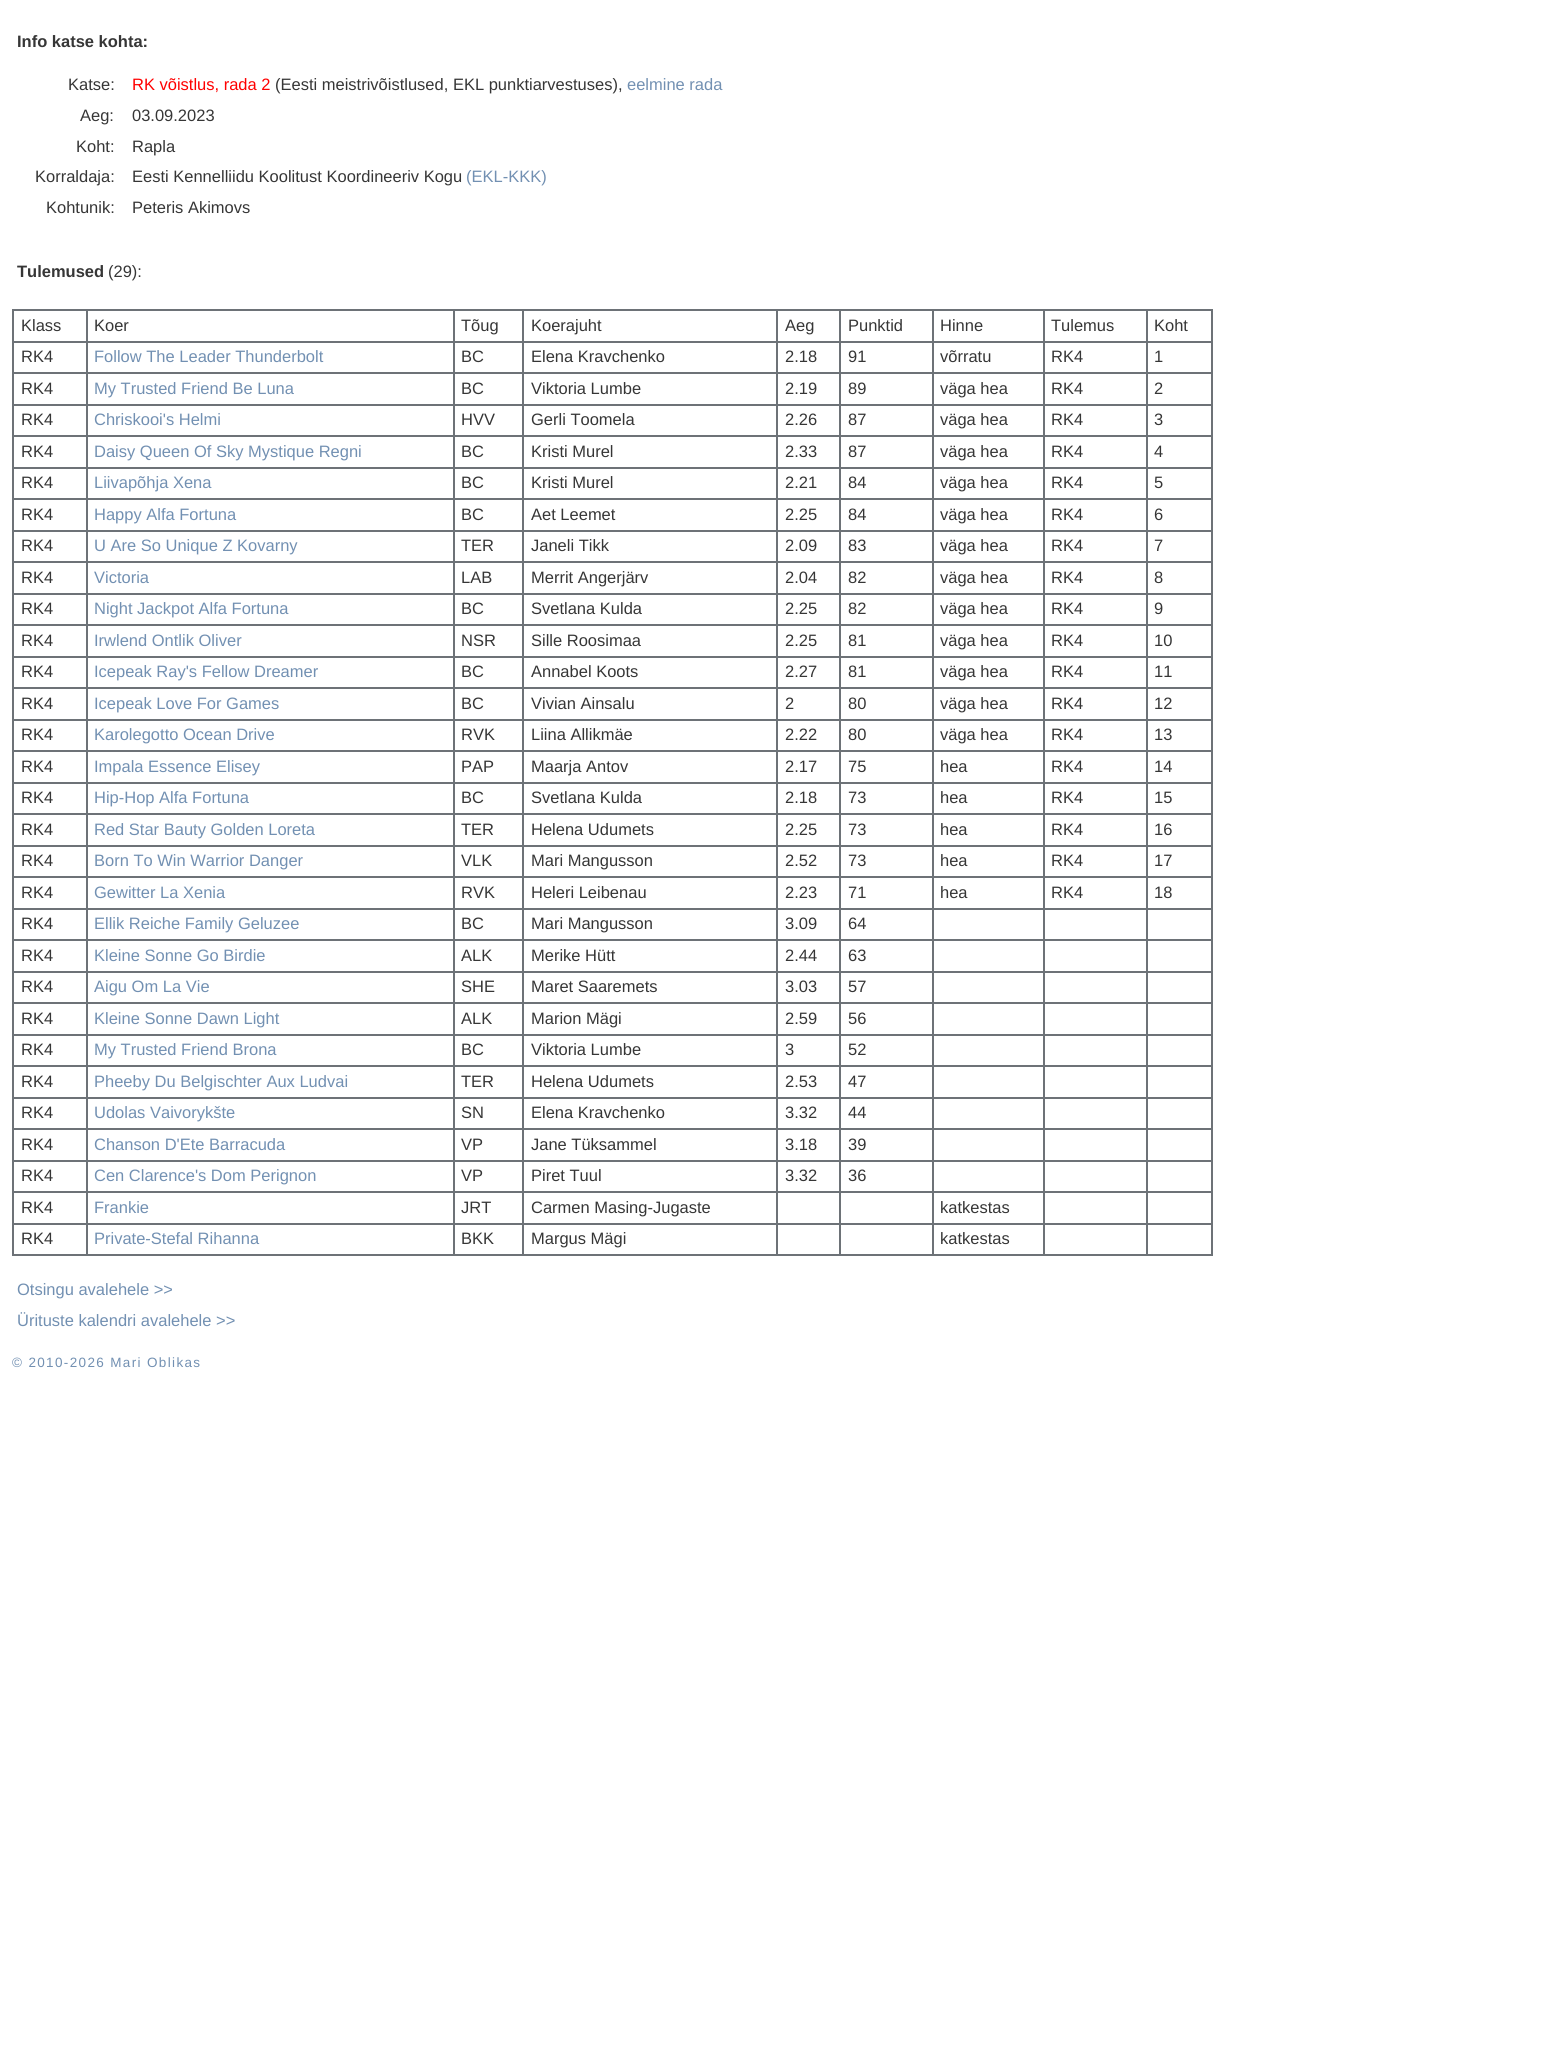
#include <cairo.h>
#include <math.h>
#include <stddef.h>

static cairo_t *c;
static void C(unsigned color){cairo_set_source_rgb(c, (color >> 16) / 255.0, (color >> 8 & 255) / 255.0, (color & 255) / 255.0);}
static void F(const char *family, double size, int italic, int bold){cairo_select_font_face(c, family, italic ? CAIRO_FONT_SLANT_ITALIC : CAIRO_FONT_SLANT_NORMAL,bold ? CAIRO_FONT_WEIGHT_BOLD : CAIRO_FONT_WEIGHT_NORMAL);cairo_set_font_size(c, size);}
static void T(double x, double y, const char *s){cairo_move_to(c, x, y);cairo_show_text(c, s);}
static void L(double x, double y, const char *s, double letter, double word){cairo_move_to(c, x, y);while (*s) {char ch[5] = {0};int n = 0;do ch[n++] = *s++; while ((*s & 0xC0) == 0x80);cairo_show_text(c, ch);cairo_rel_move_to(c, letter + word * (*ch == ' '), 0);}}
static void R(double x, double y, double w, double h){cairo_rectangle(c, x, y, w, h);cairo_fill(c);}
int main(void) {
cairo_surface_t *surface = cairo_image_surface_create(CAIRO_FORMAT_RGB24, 1557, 2063);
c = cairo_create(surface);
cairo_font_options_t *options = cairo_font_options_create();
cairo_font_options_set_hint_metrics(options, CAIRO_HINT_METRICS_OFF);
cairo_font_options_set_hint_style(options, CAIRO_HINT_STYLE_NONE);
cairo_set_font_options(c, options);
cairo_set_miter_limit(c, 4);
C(0xffffff);
cairo_paint(c);
F("Liberation Sans",16.5,0,1);
C(0x363636);
T(17,47,"Info katse kohta:");
F("Liberation Sans",16.5,0,0);
T(68,90,"Katse:");
C(0xff0000);
T(132,90,"RK võistlus, rada 2");
C(0x363636);
T(275,90,"(Eesti meistrivõistlused, EKL punktiarvestuses),");
C(0x7290b2);
T(627,90,"eelmine rada");
C(0x363636);
T(80,121,"Aeg:");
T(132,121,"03.09.2023");
T(76,152,"Koht:");
T(132,152,"Rapla");
T(35,182,"Korraldaja:");
T(132,182,"Eesti Kennelliidu Koolitust Koordineeriv Kogu");
C(0x7290b2);
T(466,182,"(EKL-KKK)");
C(0x363636);
T(46,213,"Kohtunik:");
T(132,213,"Peteris Akimovs");
F("Liberation Sans",16.5,0,1);
T(17,277,"Tulemused");
F("Liberation Sans",16.5,0,0);
T(108,277,"(29):");
C(0x6d7277);
R(1146,309,66,2);
R(1146,341,66,2);
R(1146,372,66,2);
R(1146,404,66,2);
R(1146,435,66,2);
R(1146,467,66,2);
R(1146,498,66,2);
R(1146,530,66,2);
R(1146,561,66,2);
R(1146,593,66,2);
R(1146,624,66,2);
R(1146,656,66,2);
R(1146,687,66,2);
R(1146,719,66,2);
R(1146,750,66,2);
R(1146,782,66,2);
R(1146,813,66,2);
R(1146,845,66,2);
R(1146,876,66,2);
R(1146,908,66,2);
R(1146,939,66,2);
R(1146,971,66,2);
R(1146,1002,66,2);
R(1146,1034,66,2);
R(1146,1065,66,2);
R(1146,1097,66,2);
R(1146,1128,66,2);
R(1146,1160,66,2);
R(1146,1191,66,2);
R(1146,1223,66,2);
R(1211,1223,2,33);
R(1146,1254,66,2);
R(1146,1223,2,33);
R(1043,1223,105,2);
R(1146,1191,2,33);
R(1043,1191,105,2);
R(1146,1160,2,33);
R(1043,1160,105,2);
R(1146,1128,2,33);
R(1043,1128,105,2);
R(1146,1097,2,33);
R(1043,1097,105,2);
R(1146,1065,2,33);
R(1043,1065,105,2);
R(1146,1034,2,33);
R(1043,1034,105,2);
R(1146,1002,2,33);
R(1043,1002,105,2);
R(1146,971,2,33);
R(1043,971,105,2);
R(1146,939,2,33);
R(1043,939,105,2);
R(1146,908,2,33);
R(1043,908,105,2);
R(1146,876,2,33);
R(1043,876,105,2);
R(1146,845,2,33);
R(1043,845,105,2);
R(1146,813,2,33);
R(1043,813,105,2);
R(1146,782,2,33);
R(1043,782,105,2);
R(1146,750,2,33);
R(1043,750,105,2);
R(1146,719,2,33);
R(1043,719,105,2);
R(1146,687,2,33);
R(1043,687,105,2);
R(1146,656,2,33);
R(1043,656,105,2);
R(1146,624,2,33);
R(1043,624,105,2);
R(1146,593,2,33);
R(1043,593,105,2);
R(1146,561,2,33);
R(1043,561,105,2);
R(1146,530,2,33);
R(1043,530,105,2);
R(1146,498,2,33);
R(1043,498,105,2);
R(1146,467,2,33);
R(1043,467,105,2);
R(1146,435,2,33);
R(1043,435,105,2);
R(1146,404,2,33);
R(1043,404,105,2);
R(1146,372,2,33);
R(1043,372,105,2);
R(1146,341,2,33);
R(1043,341,105,2);
R(1146,309,2,33);
R(1043,309,105,2);
R(1043,1254,105,2);
R(1043,1223,2,33);
R(932,1223,112,2);
R(1043,1191,2,33);
R(932,1191,112,2);
R(1043,1160,2,33);
R(932,1160,112,2);
R(1043,1128,2,33);
R(932,1128,112,2);
R(1043,1097,2,33);
R(932,1097,112,2);
R(1043,1065,2,33);
R(932,1065,112,2);
R(1043,1034,2,33);
R(932,1034,112,2);
R(1043,1002,2,33);
R(932,1002,112,2);
R(1043,971,2,33);
R(932,971,112,2);
R(1043,939,2,33);
R(932,939,112,2);
R(1043,908,2,33);
R(932,908,112,2);
R(1043,876,2,33);
R(932,876,112,2);
R(1043,845,2,33);
R(932,845,112,2);
R(1043,813,2,33);
R(932,813,112,2);
R(1043,782,2,33);
R(932,782,112,2);
R(1043,750,2,33);
R(932,750,112,2);
R(1043,719,2,33);
R(932,719,112,2);
R(1043,687,2,33);
R(932,687,112,2);
R(1043,656,2,33);
R(932,656,112,2);
R(1043,624,2,33);
R(932,624,112,2);
R(1043,593,2,33);
R(932,593,112,2);
R(1043,561,2,33);
R(932,561,112,2);
R(1043,530,2,33);
R(932,530,112,2);
R(1043,498,2,33);
R(932,498,112,2);
R(1043,467,2,33);
R(932,467,112,2);
R(1043,435,2,33);
R(932,435,112,2);
R(1043,404,2,33);
R(932,404,112,2);
R(1043,372,2,33);
R(932,372,112,2);
R(1043,341,2,33);
R(932,341,112,2);
R(1043,309,2,33);
R(932,309,112,2);
R(932,1254,112,2);
R(932,1223,2,33);
R(839,1223,94,2);
R(932,1191,2,33);
R(839,1191,94,2);
R(932,1160,2,33);
R(839,1160,94,2);
R(932,1128,2,33);
R(839,1128,94,2);
R(932,1097,2,33);
R(839,1097,94,2);
R(932,1065,2,33);
R(839,1065,94,2);
R(932,1034,2,33);
R(839,1034,94,2);
R(932,1002,2,33);
R(839,1002,94,2);
R(932,971,2,33);
R(839,971,94,2);
R(932,939,2,33);
R(839,939,94,2);
R(932,908,2,33);
R(839,908,94,2);
R(932,876,2,33);
R(839,876,94,2);
R(932,845,2,33);
R(839,845,94,2);
R(932,813,2,33);
R(839,813,94,2);
R(932,782,2,33);
R(839,782,94,2);
R(932,750,2,33);
R(839,750,94,2);
R(932,719,2,33);
R(839,719,94,2);
R(932,687,2,33);
R(839,687,94,2);
R(932,656,2,33);
R(839,656,94,2);
R(932,624,2,33);
R(839,624,94,2);
R(932,593,2,33);
R(839,593,94,2);
R(932,561,2,33);
R(839,561,94,2);
R(932,530,2,33);
R(839,530,94,2);
R(932,498,2,33);
R(839,498,94,2);
R(932,467,2,33);
R(839,467,94,2);
R(932,435,2,33);
R(839,435,94,2);
R(932,404,2,33);
R(839,404,94,2);
R(932,372,2,33);
R(839,372,94,2);
R(932,341,2,33);
R(839,341,94,2);
R(932,309,2,33);
R(839,309,94,2);
R(839,1254,94,2);
R(839,1223,2,33);
R(776,1223,64,2);
R(839,1191,2,33);
R(776,1191,64,2);
R(839,1160,2,33);
R(776,1160,64,2);
R(839,1128,2,33);
R(776,1128,64,2);
R(839,1097,2,33);
R(776,1097,64,2);
R(839,1065,2,33);
R(776,1065,64,2);
R(839,1034,2,33);
R(776,1034,64,2);
R(839,1002,2,33);
R(776,1002,64,2);
R(839,971,2,33);
R(776,971,64,2);
R(839,939,2,33);
R(776,939,64,2);
R(839,908,2,33);
R(776,908,64,2);
R(839,876,2,33);
R(776,876,64,2);
R(839,845,2,33);
R(776,845,64,2);
R(839,813,2,33);
R(776,813,64,2);
R(839,782,2,33);
R(776,782,64,2);
R(839,750,2,33);
R(776,750,64,2);
R(839,719,2,33);
R(776,719,64,2);
R(839,687,2,33);
R(776,687,64,2);
R(839,656,2,33);
R(776,656,64,2);
R(839,624,2,33);
R(776,624,64,2);
R(839,593,2,33);
R(776,593,64,2);
R(839,561,2,33);
R(776,561,64,2);
R(839,530,2,33);
R(776,530,64,2);
R(839,498,2,33);
R(776,498,64,2);
R(839,467,2,33);
R(776,467,64,2);
R(839,435,2,33);
R(776,435,64,2);
R(839,404,2,33);
R(776,404,64,2);
R(839,372,2,33);
R(776,372,64,2);
R(839,341,2,33);
R(776,341,64,2);
R(839,309,2,33);
R(776,309,64,2);
R(776,1254,64,2);
R(776,1223,2,33);
R(522,1223,255,2);
R(776,1191,2,33);
R(522,1191,255,2);
R(776,1160,2,33);
R(522,1160,255,2);
R(776,1128,2,33);
R(522,1128,255,2);
R(776,1097,2,33);
R(522,1097,255,2);
R(776,1065,2,33);
R(522,1065,255,2);
R(776,1034,2,33);
R(522,1034,255,2);
R(776,1002,2,33);
R(522,1002,255,2);
R(776,971,2,33);
R(522,971,255,2);
R(776,939,2,33);
R(522,939,255,2);
R(776,908,2,33);
R(522,908,255,2);
R(776,876,2,33);
R(522,876,255,2);
R(776,845,2,33);
R(522,845,255,2);
R(776,813,2,33);
R(522,813,255,2);
R(776,782,2,33);
R(522,782,255,2);
R(776,750,2,33);
R(522,750,255,2);
R(776,719,2,33);
R(522,719,255,2);
R(776,687,2,33);
R(522,687,255,2);
R(776,656,2,33);
R(522,656,255,2);
R(776,624,2,33);
R(522,624,255,2);
R(776,593,2,33);
R(522,593,255,2);
R(776,561,2,33);
R(522,561,255,2);
R(776,530,2,33);
R(522,530,255,2);
R(776,498,2,33);
R(522,498,255,2);
R(776,467,2,33);
R(522,467,255,2);
R(776,435,2,33);
R(522,435,255,2);
R(776,404,2,33);
R(522,404,255,2);
R(776,372,2,33);
R(522,372,255,2);
R(776,341,2,33);
R(522,341,255,2);
R(776,309,2,33);
R(522,309,255,2);
R(522,1254,255,2);
R(522,1223,2,33);
R(453,1223,71,2);
R(522,1191,2,33);
R(453,1191,71,2);
R(522,1160,2,33);
R(453,1160,71,2);
R(522,1128,2,33);
R(453,1128,71,2);
R(522,1097,2,33);
R(453,1097,71,2);
R(522,1065,2,33);
R(453,1065,71,2);
R(522,1034,2,33);
R(453,1034,71,2);
R(522,1002,2,33);
R(453,1002,71,2);
R(522,971,2,33);
R(453,971,71,2);
R(522,939,2,33);
R(453,939,71,2);
R(522,908,2,33);
R(453,908,71,2);
R(522,876,2,33);
R(453,876,71,2);
R(522,845,2,33);
R(453,845,71,2);
R(522,813,2,33);
R(453,813,71,2);
R(522,782,2,33);
R(453,782,71,2);
R(522,750,2,33);
R(453,750,71,2);
R(522,719,2,33);
R(453,719,71,2);
R(522,687,2,33);
R(453,687,71,2);
R(522,656,2,33);
R(453,656,71,2);
R(522,624,2,33);
R(453,624,71,2);
R(522,593,2,33);
R(453,593,71,2);
R(522,561,2,33);
R(453,561,71,2);
R(522,530,2,33);
R(453,530,71,2);
R(522,498,2,33);
R(453,498,71,2);
R(522,467,2,33);
R(453,467,71,2);
R(522,435,2,33);
R(453,435,71,2);
R(522,404,2,33);
R(453,404,71,2);
R(522,372,2,33);
R(453,372,71,2);
R(522,341,2,33);
R(453,341,71,2);
R(522,309,2,33);
R(453,309,71,2);
R(453,1254,71,2);
R(453,1223,2,33);
R(86,1223,369,2);
R(453,1191,2,33);
R(86,1191,369,2);
R(453,1160,2,33);
R(86,1160,369,2);
R(453,1128,2,33);
R(86,1128,369,2);
R(453,1097,2,33);
R(86,1097,369,2);
R(453,1065,2,33);
R(86,1065,369,2);
R(453,1034,2,33);
R(86,1034,369,2);
R(453,1002,2,33);
R(86,1002,369,2);
R(453,971,2,33);
R(86,971,369,2);
R(453,939,2,33);
R(86,939,369,2);
R(453,908,2,33);
R(86,908,369,2);
R(453,876,2,33);
R(86,876,369,2);
R(453,845,2,33);
R(86,845,369,2);
R(453,813,2,33);
R(86,813,369,2);
R(453,782,2,33);
R(86,782,369,2);
R(453,750,2,33);
R(86,750,369,2);
R(453,719,2,33);
R(86,719,369,2);
R(453,687,2,33);
R(86,687,369,2);
R(453,656,2,33);
R(86,656,369,2);
R(453,624,2,33);
R(86,624,369,2);
R(453,593,2,33);
R(86,593,369,2);
R(453,561,2,33);
R(86,561,369,2);
R(453,530,2,33);
R(86,530,369,2);
R(453,498,2,33);
R(86,498,369,2);
R(453,467,2,33);
R(86,467,369,2);
R(453,435,2,33);
R(86,435,369,2);
R(453,404,2,33);
R(86,404,369,2);
R(453,372,2,33);
R(86,372,369,2);
R(453,341,2,33);
R(86,341,369,2);
R(453,309,2,33);
R(86,309,369,2);
R(86,1254,369,2);
R(86,1223,2,33);
R(12,1223,75,2);
R(86,1191,2,33);
R(12,1191,75,2);
R(86,1160,2,33);
R(12,1160,75,2);
R(86,1128,2,33);
R(12,1128,75,2);
R(86,1097,2,33);
R(12,1097,75,2);
R(86,1065,2,33);
R(12,1065,75,2);
R(86,1034,2,33);
R(12,1034,75,2);
R(86,1002,2,33);
R(12,1002,75,2);
R(86,971,2,33);
R(12,971,75,2);
R(86,939,2,33);
R(12,939,75,2);
R(86,908,2,33);
R(12,908,75,2);
R(86,876,2,33);
R(12,876,75,2);
R(86,845,2,33);
R(12,845,75,2);
R(86,813,2,33);
R(12,813,75,2);
R(86,782,2,33);
R(12,782,75,2);
R(86,750,2,33);
R(12,750,75,2);
R(86,719,2,33);
R(12,719,75,2);
R(86,687,2,33);
R(12,687,75,2);
R(86,656,2,33);
R(12,656,75,2);
R(86,624,2,33);
R(12,624,75,2);
R(86,593,2,33);
R(12,593,75,2);
R(86,561,2,33);
R(12,561,75,2);
R(86,530,2,33);
R(12,530,75,2);
R(86,498,2,33);
R(12,498,75,2);
R(86,467,2,33);
R(12,467,75,2);
R(86,435,2,33);
R(12,435,75,2);
R(86,404,2,33);
R(12,404,75,2);
R(86,372,2,33);
R(12,372,75,2);
R(86,341,2,33);
R(12,341,75,2);
R(86,309,2,33);
R(12,309,75,2);
R(12,1254,75,2);
R(12,1223,2,33);
R(12,1191,2,33);
R(12,1160,2,33);
R(12,1128,2,33);
R(12,1097,2,33);
R(12,1065,2,33);
R(12,1034,2,33);
R(12,1002,2,33);
R(12,971,2,33);
R(12,939,2,33);
R(12,908,2,33);
R(12,876,2,33);
R(12,845,2,33);
R(12,813,2,33);
R(12,782,2,33);
R(12,750,2,33);
R(12,719,2,33);
R(12,687,2,33);
R(12,656,2,33);
R(12,624,2,33);
R(12,593,2,33);
R(12,561,2,33);
R(12,530,2,33);
R(12,498,2,33);
R(12,467,2,33);
R(12,435,2,33);
R(12,404,2,33);
R(12,372,2,33);
R(12,341,2,33);
R(12,309,2,33);
C(0x363636);
T(21,331,"Klass");
T(94,331,"Koer");
T(461,331,"Tõug");
T(531,331,"Koerajuht");
T(785,331,"Aeg");
T(848,331,"Punktid");
T(940,331,"Hinne");
T(1051,331,"Tulemus");
C(0x6d7277);
R(1211,1191,2,33);
R(1211,1160,2,33);
R(1211,1128,2,33);
R(1211,1097,2,33);
R(1211,1065,2,33);
R(1211,1034,2,33);
R(1211,1002,2,33);
R(1211,971,2,33);
R(1211,939,2,33);
R(1211,908,2,33);
R(1211,876,2,33);
R(1211,845,2,33);
R(1211,813,2,33);
R(1211,782,2,33);
R(1211,750,2,33);
R(1211,719,2,33);
R(1211,687,2,33);
R(1211,656,2,33);
R(1211,624,2,33);
R(1211,593,2,33);
R(1211,561,2,33);
R(1211,530,2,33);
R(1211,498,2,33);
R(1211,467,2,33);
R(1211,435,2,33);
R(1211,404,2,33);
R(1211,372,2,33);
R(1211,341,2,33);
R(1211,309,2,33);
C(0x363636);
T(1154,331,"Koht");
T(21,362,"RK4");
C(0x7290b2);
T(94,362,"Follow The Leader Thunderbolt");
C(0x363636);
T(461,362,"BC");
T(531,362,"Elena Kravchenko");
T(785,362,"2.18");
T(848,362,"91");
T(940,362,"võrratu");
T(1051,362,"RK4");
T(1154,362,"1");
T(21,394,"RK4");
C(0x7290b2);
T(94,394,"My Trusted Friend Be Luna");
C(0x363636);
T(461,394,"BC");
T(531,394,"Viktoria Lumbe");
T(785,394,"2.19");
T(848,394,"89");
T(940,394,"väga hea");
T(1051,394,"RK4");
T(1154,394,"2");
T(21,425,"RK4");
C(0x7290b2);
T(94,425,"Chriskooi's Helmi");
C(0x363636);
T(461,425,"HVV");
T(531,425,"Gerli Toomela");
T(785,425,"2.26");
T(848,425,"87");
T(940,425,"väga hea");
T(1051,425,"RK4");
T(1154,425,"3");
T(21,457,"RK4");
C(0x7290b2);
T(94,457,"Daisy Queen Of Sky Mystique Regni");
C(0x363636);
T(461,457,"BC");
T(531,457,"Kristi Murel");
T(785,457,"2.33");
T(848,457,"87");
T(940,457,"väga hea");
T(1051,457,"RK4");
T(1154,457,"4");
T(21,488,"RK4");
C(0x7290b2);
T(94,488,"Liivapõhja Xena");
C(0x363636);
T(461,488,"BC");
T(531,488,"Kristi Murel");
T(785,488,"2.21");
T(848,488,"84");
T(940,488,"väga hea");
T(1051,488,"RK4");
T(1154,488,"5");
T(21,520,"RK4");
C(0x7290b2);
T(94,520,"Happy Alfa Fortuna");
C(0x363636);
T(461,520,"BC");
T(531,520,"Aet Leemet");
T(785,520,"2.25");
T(848,520,"84");
T(940,520,"väga hea");
T(1051,520,"RK4");
T(1154,520,"6");
T(21,551,"RK4");
C(0x7290b2);
T(94,551,"U Are So Unique Z Kovarny");
C(0x363636);
T(461,551,"TER");
T(531,551,"Janeli Tikk");
T(785,551,"2.09");
T(848,551,"83");
T(940,551,"väga hea");
T(1051,551,"RK4");
T(1154,551,"7");
T(21,583,"RK4");
C(0x7290b2);
T(94,583,"Victoria");
C(0x363636);
T(461,583,"LAB");
T(531,583,"Merrit Angerjärv");
T(785,583,"2.04");
T(848,583,"82");
T(940,583,"väga hea");
T(1051,583,"RK4");
T(1154,583,"8");
T(21,614,"RK4");
C(0x7290b2);
T(94,614,"Night Jackpot Alfa Fortuna");
C(0x363636);
T(461,614,"BC");
T(531,614,"Svetlana Kulda");
T(785,614,"2.25");
T(848,614,"82");
T(940,614,"väga hea");
T(1051,614,"RK4");
T(1154,614,"9");
T(21,646,"RK4");
C(0x7290b2);
T(94,646,"Irwlend Ontlik Oliver");
C(0x363636);
T(461,646,"NSR");
T(531,646,"Sille Roosimaa");
T(785,646,"2.25");
T(848,646,"81");
T(940,646,"väga hea");
T(1051,646,"RK4");
T(1154,646,"10");
T(21,677,"RK4");
C(0x7290b2);
T(94,677,"Icepeak Ray's Fellow Dreamer");
C(0x363636);
T(461,677,"BC");
T(531,677,"Annabel Koots");
T(785,677,"2.27");
T(848,677,"81");
T(940,677,"väga hea");
T(1051,677,"RK4");
T(1154,677,"11");
T(21,709,"RK4");
C(0x7290b2);
T(94,709,"Icepeak Love For Games");
C(0x363636);
T(461,709,"BC");
T(531,709,"Vivian Ainsalu");
T(785,709,"2");
T(848,709,"80");
T(940,709,"väga hea");
T(1051,709,"RK4");
T(1154,709,"12");
T(21,740,"RK4");
C(0x7290b2);
T(94,740,"Karolegotto Ocean Drive");
C(0x363636);
T(461,740,"RVK");
T(531,740,"Liina Allikmäe");
T(785,740,"2.22");
T(848,740,"80");
T(940,740,"väga hea");
T(1051,740,"RK4");
T(1154,740,"13");
T(21,772,"RK4");
C(0x7290b2);
T(94,772,"Impala Essence Elisey");
C(0x363636);
T(461,772,"PAP");
T(531,772,"Maarja Antov");
T(785,772,"2.17");
T(848,772,"75");
T(940,772,"hea");
T(1051,772,"RK4");
T(1154,772,"14");
T(21,803,"RK4");
C(0x7290b2);
T(94,803,"Hip-Hop Alfa Fortuna");
C(0x363636);
T(461,803,"BC");
T(531,803,"Svetlana Kulda");
T(785,803,"2.18");
T(848,803,"73");
T(940,803,"hea");
T(1051,803,"RK4");
T(1154,803,"15");
T(21,835,"RK4");
C(0x7290b2);
T(94,835,"Red Star Bauty Golden Loreta");
C(0x363636);
T(461,835,"TER");
T(531,835,"Helena Udumets");
T(785,835,"2.25");
T(848,835,"73");
T(940,835,"hea");
T(1051,835,"RK4");
T(1154,835,"16");
T(21,866,"RK4");
C(0x7290b2);
T(94,866,"Born To Win Warrior Danger");
C(0x363636);
T(461,866,"VLK");
T(531,866,"Mari Mangusson");
T(785,866,"2.52");
T(848,866,"73");
T(940,866,"hea");
T(1051,866,"RK4");
T(1154,866,"17");
T(21,898,"RK4");
C(0x7290b2);
T(94,898,"Gewitter La Xenia");
C(0x363636);
T(461,898,"RVK");
T(531,898,"Heleri Leibenau");
T(785,898,"2.23");
T(848,898,"71");
T(940,898,"hea");
T(1051,898,"RK4");
T(1154,898,"18");
T(21,929,"RK4");
C(0x7290b2);
T(94,929,"Ellik Reiche Family Geluzee");
C(0x363636);
T(461,929,"BC");
T(531,929,"Mari Mangusson");
T(785,929,"3.09");
T(848,929,"64");
T(21,961,"RK4");
C(0x7290b2);
T(94,961,"Kleine Sonne Go Birdie");
C(0x363636);
T(461,961,"ALK");
T(531,961,"Merike Hütt");
T(785,961,"2.44");
T(848,961,"63");
T(21,992,"RK4");
C(0x7290b2);
T(94,992,"Aigu Om La Vie");
C(0x363636);
T(461,992,"SHE");
T(531,992,"Maret Saaremets");
T(785,992,"3.03");
T(848,992,"57");
T(21,1024,"RK4");
C(0x7290b2);
T(94,1024,"Kleine Sonne Dawn Light");
C(0x363636);
T(461,1024,"ALK");
T(531,1024,"Marion Mägi");
T(785,1024,"2.59");
T(848,1024,"56");
T(21,1055,"RK4");
C(0x7290b2);
T(94,1055,"My Trusted Friend Brona");
C(0x363636);
T(461,1055,"BC");
T(531,1055,"Viktoria Lumbe");
T(785,1055,"3");
T(848,1055,"52");
T(21,1087,"RK4");
C(0x7290b2);
T(94,1087,"Pheeby Du Belgischter Aux Ludvai");
C(0x363636);
T(461,1087,"TER");
T(531,1087,"Helena Udumets");
T(785,1087,"2.53");
T(848,1087,"47");
T(21,1118,"RK4");
C(0x7290b2);
T(94,1118,"Udolas Vaivorykšte");
C(0x363636);
T(461,1118,"SN");
T(531,1118,"Elena Kravchenko");
T(785,1118,"3.32");
T(848,1118,"44");
T(21,1150,"RK4");
C(0x7290b2);
T(94,1150,"Chanson D'Ete Barracuda");
C(0x363636);
T(461,1150,"VP");
T(531,1150,"Jane Tüksammel");
T(785,1150,"3.18");
T(848,1150,"39");
T(21,1181,"RK4");
C(0x7290b2);
T(94,1181,"Cen Clarence's Dom Perignon");
C(0x363636);
T(461,1181,"VP");
T(531,1181,"Piret Tuul");
T(785,1181,"3.32");
T(848,1181,"36");
T(21,1213,"RK4");
C(0x7290b2);
T(94,1213,"Frankie");
C(0x363636);
T(461,1213,"JRT");
T(531,1213,"Carmen Masing-Jugaste");
T(940,1213,"katkestas");
T(21,1244,"RK4");
C(0x7290b2);
T(94,1244,"Private-Stefal Rihanna");
C(0x363636);
T(461,1244,"BKK");
T(531,1244,"Margus Mägi");
T(940,1244,"katkestas");
C(0x7290b2);
T(17,1295,"Otsingu avalehele >>");
T(17,1326,"Ürituste kalendri avalehele >>");
F("Liberation Sans",13.5,0,0);
L(12,1367,"© 2010-2026 Mari Oblikas",1.35,0);
cairo_surface_write_to_png(surface, "o.png");
cairo_font_options_destroy(options);
cairo_destroy(c);
cairo_surface_destroy(surface);
return 0;
}
